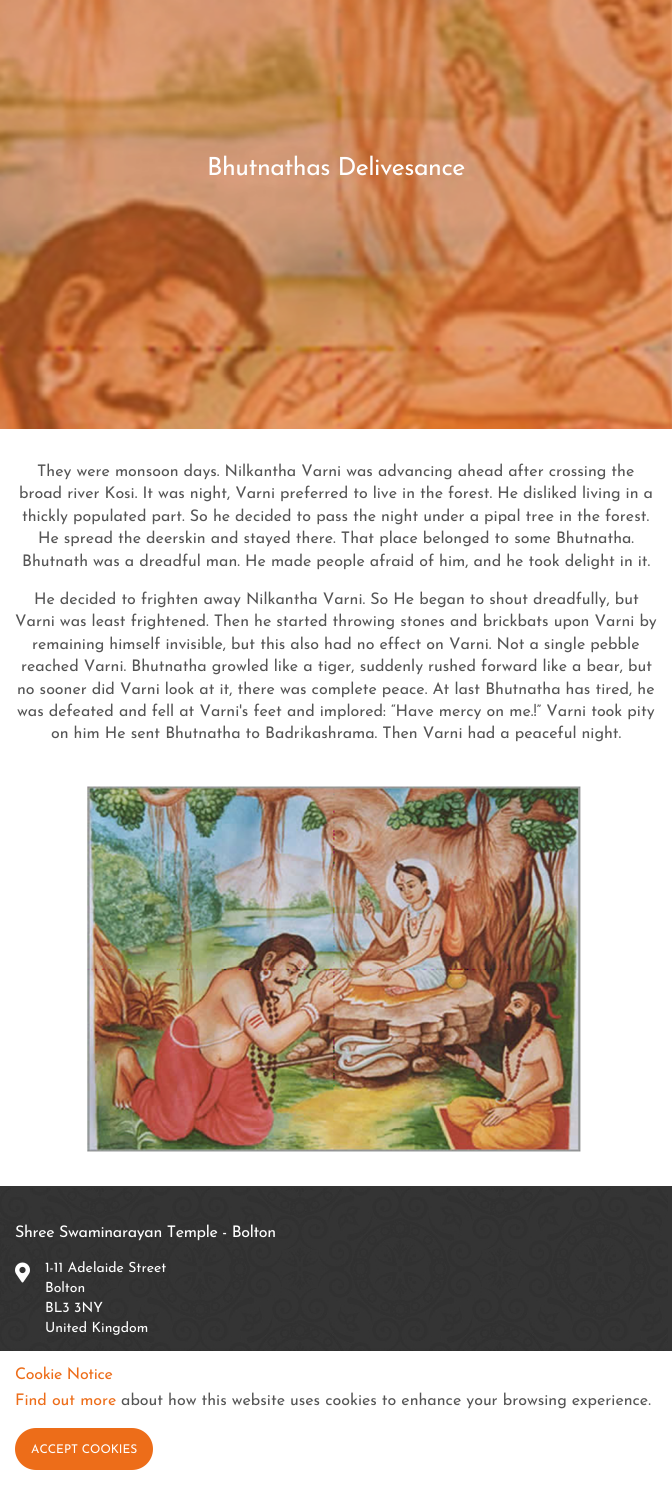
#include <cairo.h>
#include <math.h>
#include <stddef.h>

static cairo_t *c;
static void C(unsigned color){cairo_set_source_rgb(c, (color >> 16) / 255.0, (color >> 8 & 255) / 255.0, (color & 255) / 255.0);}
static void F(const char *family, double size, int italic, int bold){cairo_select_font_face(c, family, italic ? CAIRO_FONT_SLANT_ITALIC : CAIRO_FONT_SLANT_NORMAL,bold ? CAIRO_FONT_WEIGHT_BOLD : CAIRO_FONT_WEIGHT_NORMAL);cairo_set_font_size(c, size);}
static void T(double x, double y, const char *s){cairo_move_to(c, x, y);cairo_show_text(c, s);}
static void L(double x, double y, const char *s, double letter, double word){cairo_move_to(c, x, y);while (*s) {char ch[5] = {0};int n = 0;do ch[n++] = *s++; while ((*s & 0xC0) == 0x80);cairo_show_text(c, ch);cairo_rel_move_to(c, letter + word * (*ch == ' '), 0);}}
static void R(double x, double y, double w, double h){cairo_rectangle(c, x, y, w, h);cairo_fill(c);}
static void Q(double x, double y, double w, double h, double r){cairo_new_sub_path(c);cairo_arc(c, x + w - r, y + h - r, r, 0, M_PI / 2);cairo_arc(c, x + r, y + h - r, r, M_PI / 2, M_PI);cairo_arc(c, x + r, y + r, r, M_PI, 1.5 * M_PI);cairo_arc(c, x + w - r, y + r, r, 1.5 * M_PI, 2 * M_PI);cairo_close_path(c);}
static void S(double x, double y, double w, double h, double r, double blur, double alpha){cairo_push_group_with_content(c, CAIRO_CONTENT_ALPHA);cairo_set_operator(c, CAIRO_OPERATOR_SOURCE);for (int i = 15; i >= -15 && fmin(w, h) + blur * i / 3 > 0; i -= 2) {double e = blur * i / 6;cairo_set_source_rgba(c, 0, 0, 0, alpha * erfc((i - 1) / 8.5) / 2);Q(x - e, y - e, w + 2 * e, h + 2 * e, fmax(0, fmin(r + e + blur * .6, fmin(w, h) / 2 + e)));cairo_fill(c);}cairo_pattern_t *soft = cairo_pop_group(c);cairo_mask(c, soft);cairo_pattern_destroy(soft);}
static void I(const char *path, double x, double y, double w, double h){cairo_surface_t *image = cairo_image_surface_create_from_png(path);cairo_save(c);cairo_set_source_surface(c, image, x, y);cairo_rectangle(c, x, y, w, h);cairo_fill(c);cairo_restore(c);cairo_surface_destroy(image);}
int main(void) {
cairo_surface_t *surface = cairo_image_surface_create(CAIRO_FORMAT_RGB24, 672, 1485);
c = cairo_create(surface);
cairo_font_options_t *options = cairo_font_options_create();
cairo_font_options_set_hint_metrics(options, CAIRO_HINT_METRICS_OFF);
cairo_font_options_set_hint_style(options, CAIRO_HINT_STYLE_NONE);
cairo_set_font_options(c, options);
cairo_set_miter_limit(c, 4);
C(0xffffff);
cairo_paint(c);
I("1.png",0,0,672,429);
F("Josefin Sans Thin",25,0,0);
C(0xffffff);
L(207,175,"Bhutnathas Delivesance",-.5,0);
F("Josefin Sans Thin",16,0,0);
C(0x555555);
T(37,476,"They were monsoon days. Nilkantha Varni was advancing ahead after crossing the");
T(19,498,"broad river Kosi. It was night, Varni preferred to live in the forest. He disliked living in a");
T(22,521,"thickly populated part. So he decided to pass the night under a pipal tree in the forest.");
T(38,543,"He spread the deerskin and stayed there. That place belonged to some Bhutnatha.");
T(22,566,"Bhutnath was a dreadful man. He made people afraid of him, and he took delight in it.");
T(34,604,"He decided to frighten away Nilkantha Varni. So He began to shout dreadfully, but");
T(15,626,"Varni was least frightened. Then he started throwing stones and brickbats upon Varni by");
T(32,649,"remaining himself invisible, but this also had no effect on Varni. Not a single pebble");
T(21,671,"reached Varni. Bhutnatha growled like a tiger, suddenly rushed forward like a bear, but");
T(17,694,"no sooner did Varni look at it, there was complete peace. At last Bhutnatha has tired, he");
T(17,716,"was defeated and fell at Varni's feet and implored: “Have mercy on me.!” Varni took pity");
T(51,738,"on him He sent Bhutnatha to Badrikashrama. Then Varni had a peaceful night.");
I("2.png",87,786,494,366);
C(0x343434);
R(0,1186,672,165);
I("3.png",0,1188,668,163);
C(0xffffff);
L(15,1237,"Shree Swaminarayan Temple - Bolton",-.3,0);
I("4.png",15,1262,15,21);
F("Josefin Sans Thin",14,0,0);
T(45,1272,"1-11 Adelaide Street");
T(45,1292,"Bolton");
T(45,1312,"BL3 3NY");
T(45,1332,"United Kingdom");
C(0x000000);
S(0,1351,672,134,0,2.5,.1);
C(0xffffff);
R(0,1351,672,134);
F("Josefin Sans Thin",16,0,0);
C(0xed6d19);
L(15,1379,"Cookie Notice",-.3,0);
T(15,1405,"Find out more");
C(0x555555);
T(121,1405,"about how this website uses cookies to enhance your browsing experience.");
C(0xed6d19);
Q(15,1428,138,42,21);
cairo_fill(c);
F("Josefin Sans Thin",12,0,0);
C(0xffffff);
T(31,1453,"ACCEPT COOKIES");
cairo_surface_write_to_png(surface, "o.png");
cairo_font_options_destroy(options);
cairo_destroy(c);
cairo_surface_destroy(surface);
return 0;
}
